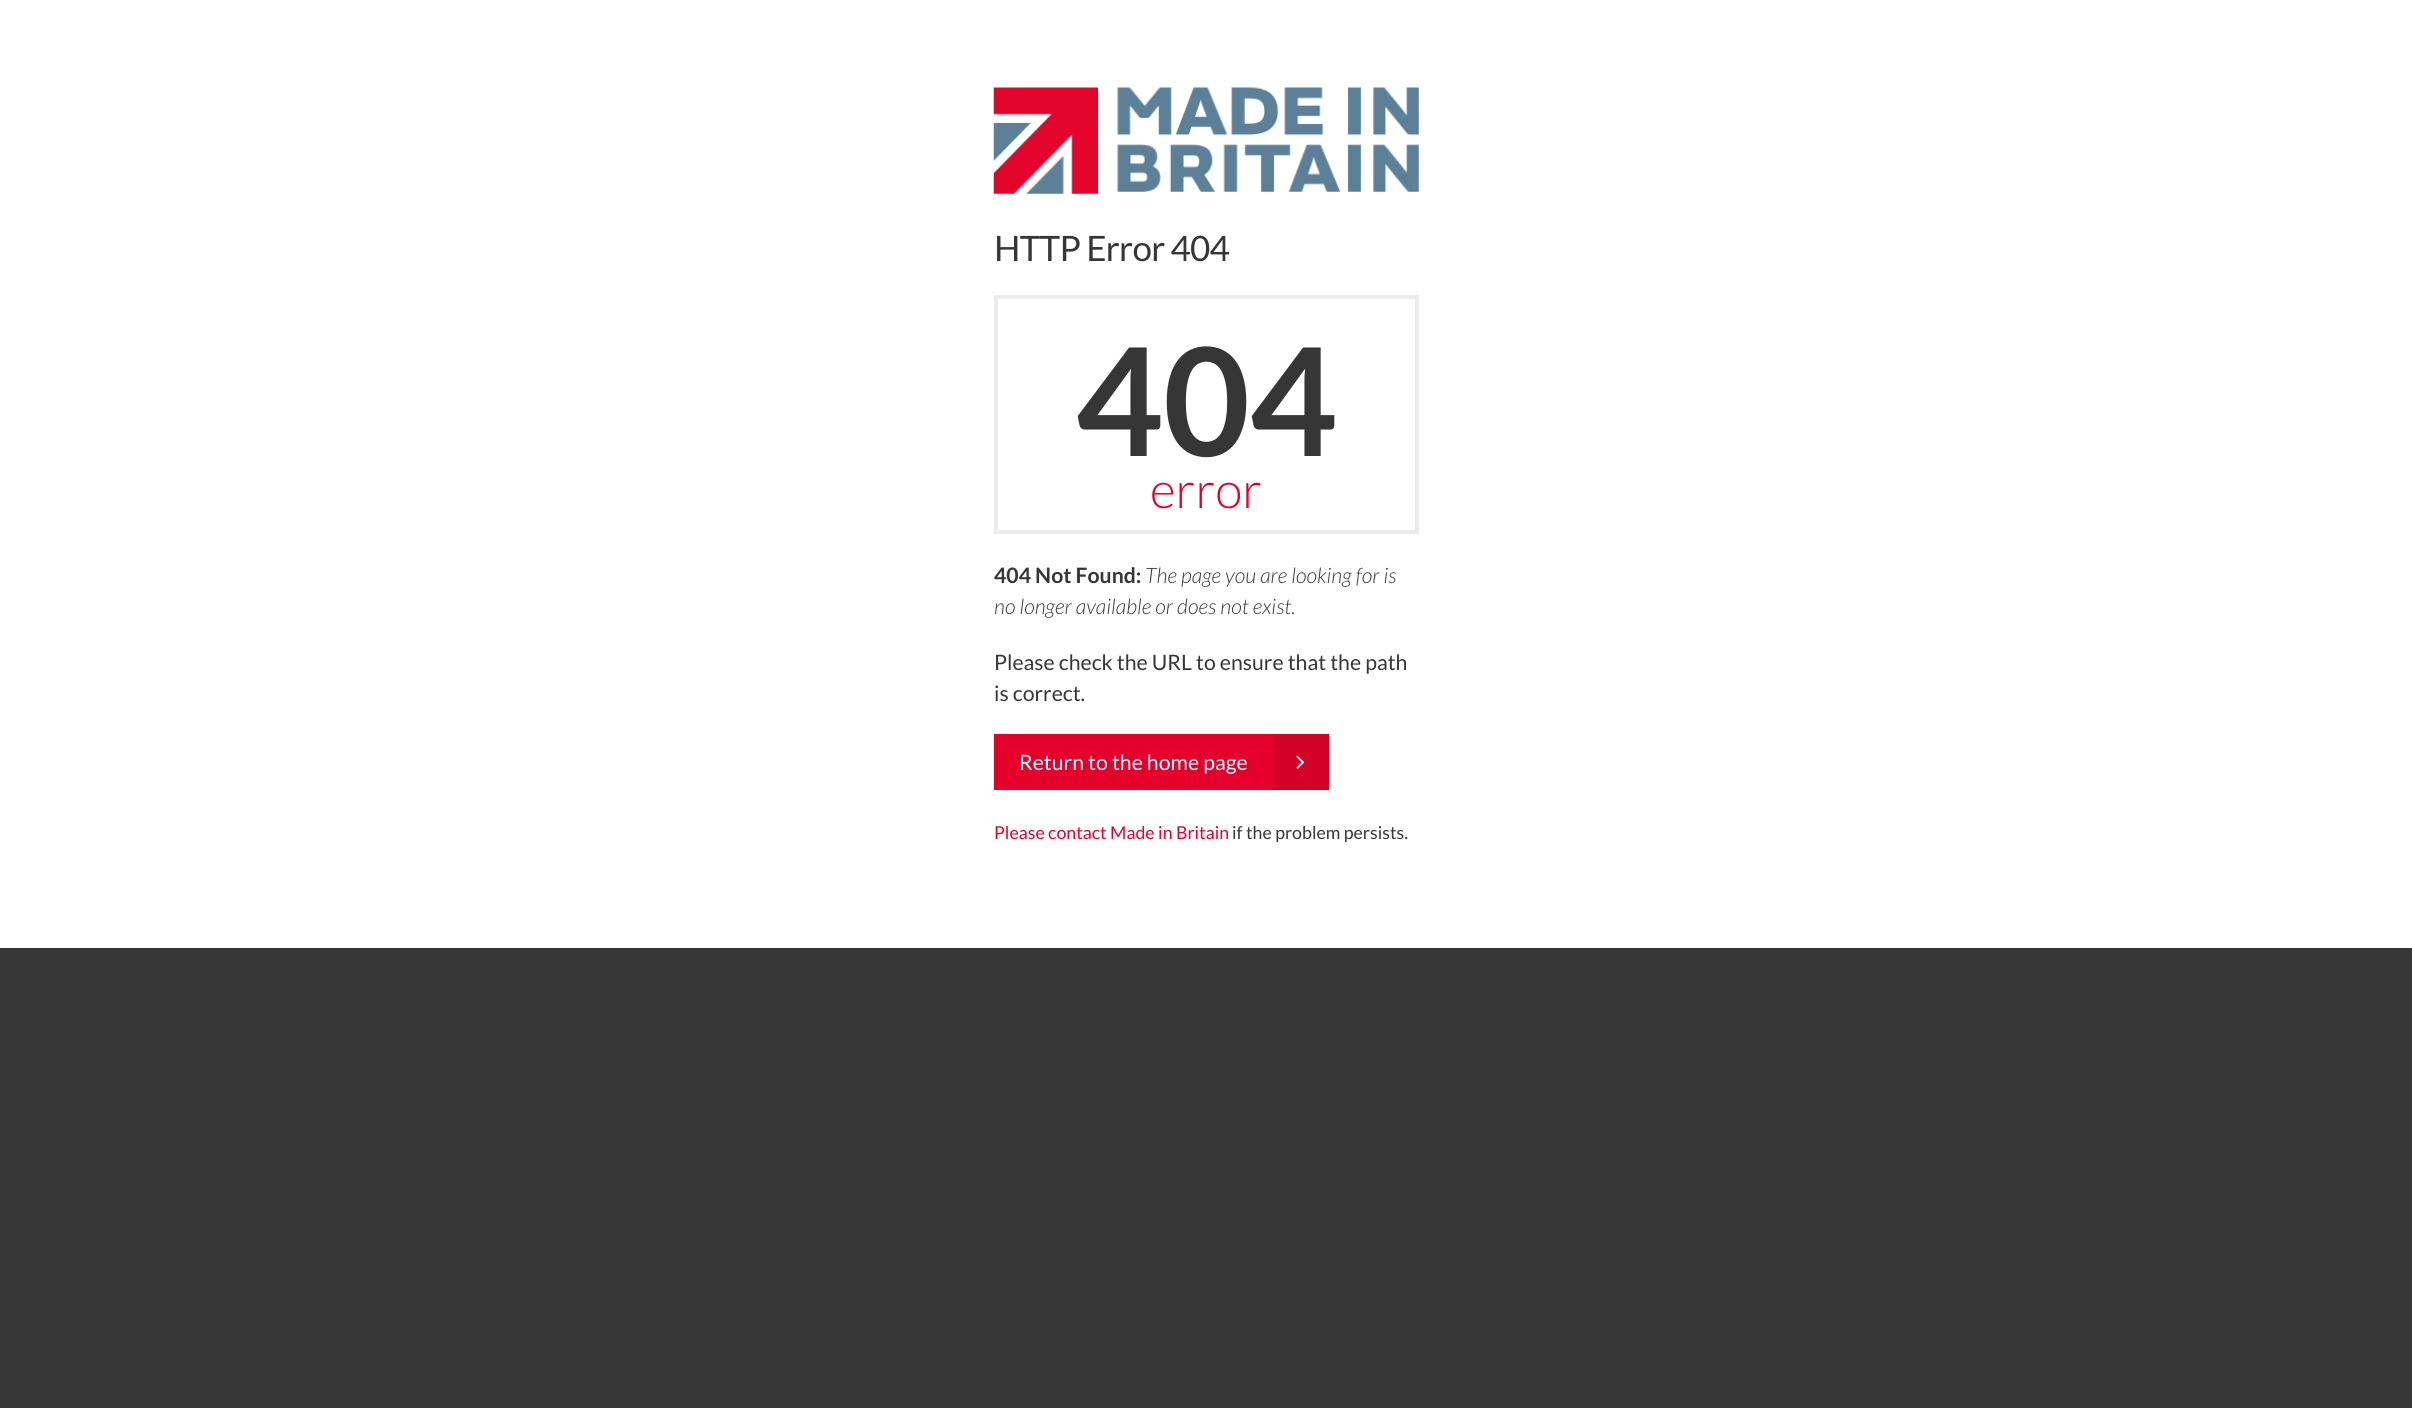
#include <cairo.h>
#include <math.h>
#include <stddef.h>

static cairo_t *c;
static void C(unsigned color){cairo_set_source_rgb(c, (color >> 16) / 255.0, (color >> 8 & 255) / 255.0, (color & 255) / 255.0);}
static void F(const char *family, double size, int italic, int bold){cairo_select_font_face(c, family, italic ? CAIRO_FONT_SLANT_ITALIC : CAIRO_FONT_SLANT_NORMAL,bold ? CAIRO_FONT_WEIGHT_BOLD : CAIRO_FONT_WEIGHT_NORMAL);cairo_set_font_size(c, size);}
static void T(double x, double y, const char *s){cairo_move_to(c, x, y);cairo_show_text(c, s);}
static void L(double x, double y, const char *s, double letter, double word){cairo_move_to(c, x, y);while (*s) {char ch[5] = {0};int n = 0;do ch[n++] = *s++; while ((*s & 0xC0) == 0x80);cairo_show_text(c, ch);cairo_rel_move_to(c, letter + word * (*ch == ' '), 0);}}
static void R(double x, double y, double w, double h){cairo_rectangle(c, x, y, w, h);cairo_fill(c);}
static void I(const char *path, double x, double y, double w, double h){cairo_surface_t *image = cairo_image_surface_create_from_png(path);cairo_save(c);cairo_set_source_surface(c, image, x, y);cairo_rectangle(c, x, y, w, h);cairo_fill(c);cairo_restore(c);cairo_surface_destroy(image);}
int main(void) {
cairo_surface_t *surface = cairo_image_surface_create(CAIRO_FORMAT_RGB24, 2412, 1408);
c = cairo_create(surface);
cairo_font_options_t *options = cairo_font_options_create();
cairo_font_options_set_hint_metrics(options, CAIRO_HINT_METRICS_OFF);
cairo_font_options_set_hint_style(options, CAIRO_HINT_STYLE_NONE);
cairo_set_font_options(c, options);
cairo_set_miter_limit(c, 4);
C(0x363636);
cairo_paint(c);
C(0xffffff);
R(0,0,2412,948);
I("1.png",993,87,426,107);
F("Lato",35,0,0);
C(0x363636);
L(994,261,"HTTP Error 404",-.75,0);
cairo_rectangle(c,996,297,421,235);
C(0xececec);
cairo_set_line_width(c,4);
cairo_stroke(c);
F("Lato",150,0,1);
C(0x363636);
T(1076,456,"404");
F("Lato Light",50,0,0);
C(0xe4002a);
T(1150,508,"error");
F("Lato",21.25,0,1);
C(0x363636);
T(994,583,"404 Not Found:");
F("Lato Light",21.25,1,0);
T(1145,583,"The page you are looking for is");
T(994,614,"no longer available or does not exist.");
F("Lato",21.25,0,0);
T(994,670,"Please check the URL to ensure that the path");
T(994,701,"is correct.");
C(0xe4002a);
R(994,734,279,56);
C(0xffffff);
T(1019,770,"Return to the home page");
C(0xd30027);
R(1273,734,56,56);
I("2.png",1296,755,9,14);
F("Lato",17.75,0,0);
C(0xe4002a);
T(994,839,"Please contact Made in Britain");
C(0x363636);
T(1232,839,"if the problem persists.");
cairo_surface_write_to_png(surface, "o.png");
cairo_font_options_destroy(options);
cairo_destroy(c);
cairo_surface_destroy(surface);
return 0;
}
